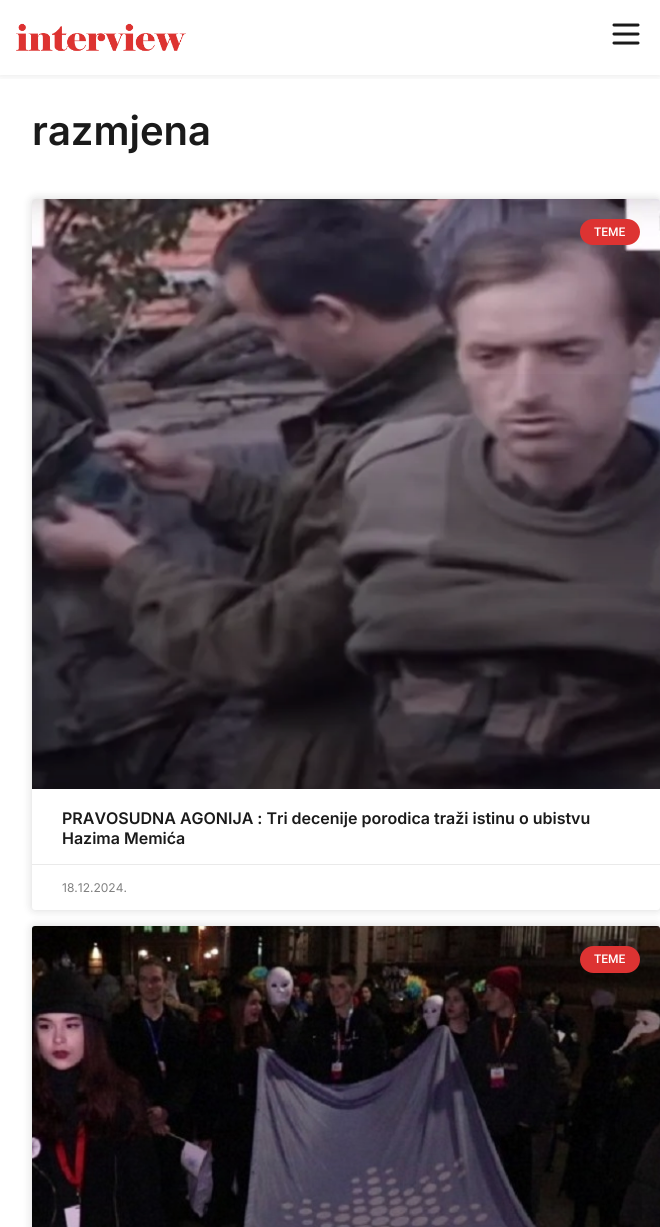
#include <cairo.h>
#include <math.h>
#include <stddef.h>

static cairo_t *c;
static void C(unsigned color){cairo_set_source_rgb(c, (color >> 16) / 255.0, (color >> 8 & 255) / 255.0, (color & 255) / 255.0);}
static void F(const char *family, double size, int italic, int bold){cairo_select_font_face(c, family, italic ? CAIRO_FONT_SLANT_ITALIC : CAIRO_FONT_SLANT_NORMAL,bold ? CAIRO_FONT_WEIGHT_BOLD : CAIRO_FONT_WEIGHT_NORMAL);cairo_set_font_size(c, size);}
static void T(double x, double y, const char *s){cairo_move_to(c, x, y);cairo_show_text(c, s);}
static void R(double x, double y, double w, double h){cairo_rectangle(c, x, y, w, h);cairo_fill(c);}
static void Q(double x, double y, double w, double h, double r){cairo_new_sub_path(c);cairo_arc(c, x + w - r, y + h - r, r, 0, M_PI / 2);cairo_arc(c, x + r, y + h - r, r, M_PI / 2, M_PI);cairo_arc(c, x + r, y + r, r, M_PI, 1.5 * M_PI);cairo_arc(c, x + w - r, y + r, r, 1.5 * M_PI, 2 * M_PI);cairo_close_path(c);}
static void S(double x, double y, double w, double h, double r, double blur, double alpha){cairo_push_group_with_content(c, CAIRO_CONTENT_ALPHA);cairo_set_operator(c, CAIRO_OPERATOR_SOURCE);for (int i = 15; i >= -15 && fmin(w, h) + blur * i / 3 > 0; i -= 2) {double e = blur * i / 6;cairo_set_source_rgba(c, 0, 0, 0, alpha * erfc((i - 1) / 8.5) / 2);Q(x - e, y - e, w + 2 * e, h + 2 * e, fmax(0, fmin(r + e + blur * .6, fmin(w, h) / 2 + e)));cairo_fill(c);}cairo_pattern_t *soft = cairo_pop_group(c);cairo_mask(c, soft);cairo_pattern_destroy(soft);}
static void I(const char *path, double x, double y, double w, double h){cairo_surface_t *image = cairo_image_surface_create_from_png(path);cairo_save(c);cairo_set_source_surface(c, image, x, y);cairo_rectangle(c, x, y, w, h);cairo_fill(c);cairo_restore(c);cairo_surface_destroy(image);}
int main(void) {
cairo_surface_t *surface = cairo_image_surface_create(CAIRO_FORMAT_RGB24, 660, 1227);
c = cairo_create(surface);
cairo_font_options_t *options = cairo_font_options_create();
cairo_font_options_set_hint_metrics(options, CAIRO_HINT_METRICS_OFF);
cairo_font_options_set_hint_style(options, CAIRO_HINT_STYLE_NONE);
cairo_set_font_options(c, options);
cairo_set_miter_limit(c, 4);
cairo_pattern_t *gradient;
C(0xffffff);
cairo_paint(c);
cairo_save(c);
cairo_rectangle(c,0,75,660,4);
cairo_clip(c);
C(0x000000);
S(0,0,660,75,0,5,.1);
cairo_restore(c);
I("1.png",16,23,170,28);
cairo_new_path(c);
cairo_move_to(c,614,34);
cairo_line_to(c,638,34);
cairo_move_to(c,614,25);
cairo_line_to(c,638,25);
cairo_move_to(c,614,43);
cairo_line_to(c,638,43);
C(0x1a1a1a);
cairo_set_line_width(c,3);
cairo_set_line_cap(c,CAIRO_LINE_CAP_ROUND);
cairo_set_line_join(c,CAIRO_LINE_JOIN_ROUND);
cairo_stroke(c);
F("Inter SemiBold",40,0,0);
T(32,145,"razmjena");
C(0x000000);
S(32,199,628,711,3,5,.15);
C(0xffffff);
Q(32,199,628,711,3);
cairo_fill(c);
I("2.png",32,199,628,590);
gradient = cairo_pattern_create_linear(346,789,346,199);
cairo_pattern_add_color_stop_rgba(gradient,0,0,0,0,.35);
cairo_pattern_add_color_stop_rgba(gradient,.75,0,0,0,0);
cairo_set_source(c,gradient);
cairo_pattern_destroy(gradient);
R(32,374,628,415);
C(0xdd3332);
Q(580,219,60,26,13);
cairo_fill(c);
F("Roboto Medium",12,0,0);
C(0xffffff);
T(594,236,"TEME");
F("Inter SemiBold",16,0,0);
C(0x1a1a1a);
T(62,824,"PRAVOSUDNA AGONIJA : Tri decenije porodica traži istinu o ubistvu");
T(62,844,"Hazima Memića");
C(0xeaeaea);
R(32,864,628,1);
F("Inter",12,0,0);
C(0x808080);
T(62,892,"18.12.2024.");
C(0x000000);
S(32,926,628,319,3,5,.15);
I("3.png",32,926,628,301);
gradient = cairo_pattern_create_linear(346,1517,346,926);
cairo_pattern_add_color_stop_rgba(gradient,0,0,0,0,.35);
cairo_pattern_add_color_stop_rgba(gradient,.75,0,0,0,0);
cairo_set_source(c,gradient);
cairo_pattern_destroy(gradient);
R(32,1101,610,126);
C(0xdd3332);
Q(580,946,60,27,13.5);
cairo_fill(c);
F("Roboto Medium",12,0,0);
C(0xffffff);
T(594,963,"TEME");
cairo_surface_write_to_png(surface, "o.png");
cairo_font_options_destroy(options);
cairo_destroy(c);
cairo_surface_destroy(surface);
return 0;
}
